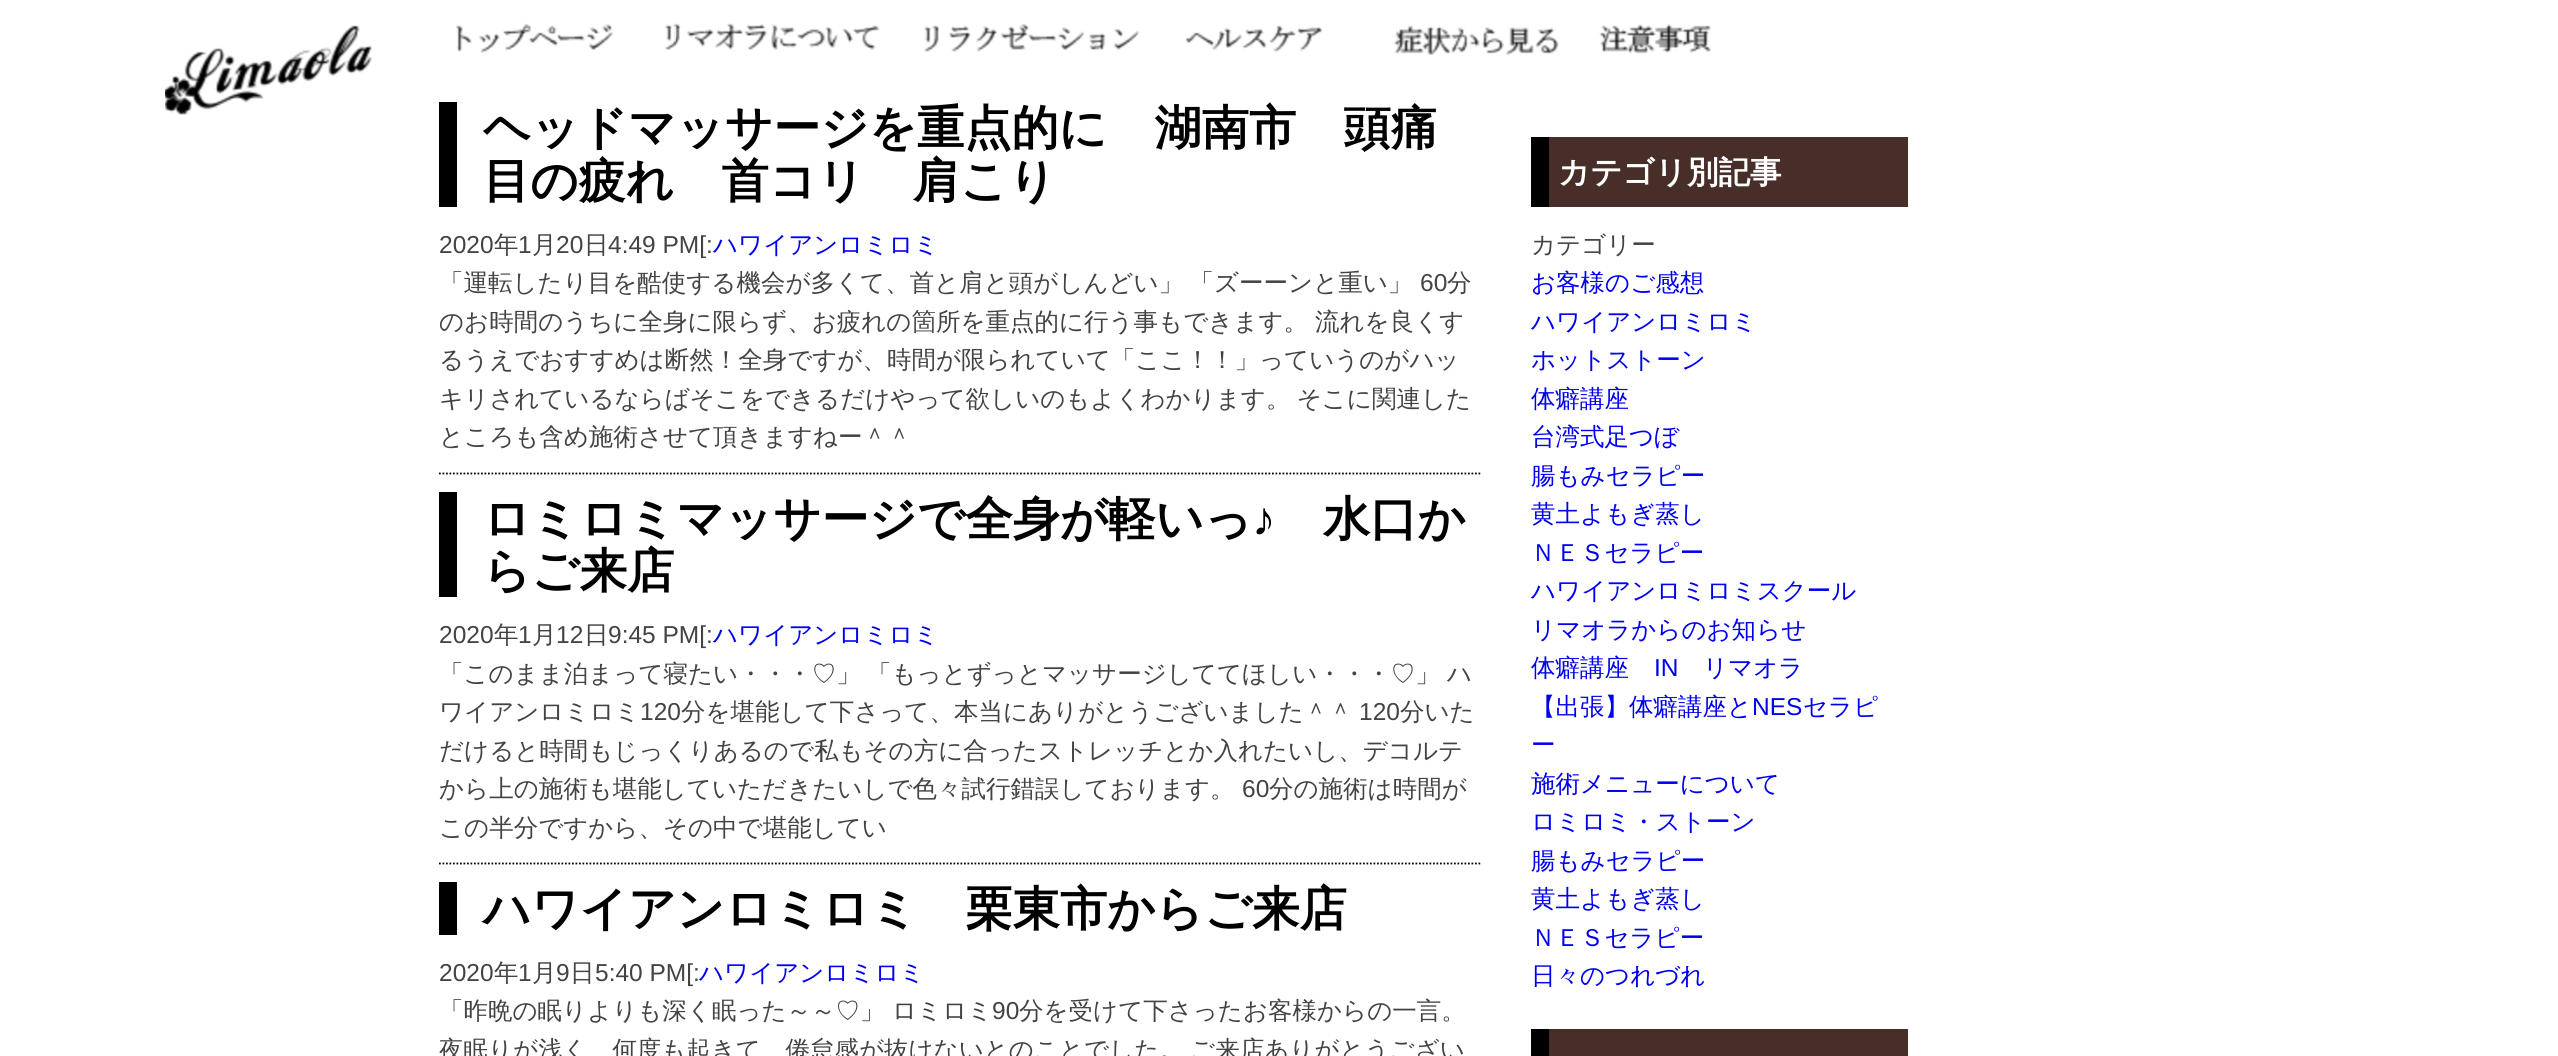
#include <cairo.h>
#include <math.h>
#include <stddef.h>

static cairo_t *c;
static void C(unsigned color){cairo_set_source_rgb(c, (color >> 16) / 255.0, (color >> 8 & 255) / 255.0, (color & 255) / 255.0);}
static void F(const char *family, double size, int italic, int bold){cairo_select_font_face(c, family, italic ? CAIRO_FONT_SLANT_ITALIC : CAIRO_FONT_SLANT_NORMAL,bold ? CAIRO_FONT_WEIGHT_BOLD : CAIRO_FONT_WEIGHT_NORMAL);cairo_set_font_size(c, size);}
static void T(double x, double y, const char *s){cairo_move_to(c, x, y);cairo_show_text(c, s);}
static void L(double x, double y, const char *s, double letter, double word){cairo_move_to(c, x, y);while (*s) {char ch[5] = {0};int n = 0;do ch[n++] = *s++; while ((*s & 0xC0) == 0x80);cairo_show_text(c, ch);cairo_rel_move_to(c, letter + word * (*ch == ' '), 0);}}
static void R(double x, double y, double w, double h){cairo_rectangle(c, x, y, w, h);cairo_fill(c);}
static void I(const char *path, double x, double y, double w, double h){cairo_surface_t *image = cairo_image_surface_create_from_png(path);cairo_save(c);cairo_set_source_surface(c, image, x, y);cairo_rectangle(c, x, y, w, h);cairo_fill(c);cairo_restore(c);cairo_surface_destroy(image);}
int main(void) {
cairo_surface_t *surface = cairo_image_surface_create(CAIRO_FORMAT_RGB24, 2558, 1056);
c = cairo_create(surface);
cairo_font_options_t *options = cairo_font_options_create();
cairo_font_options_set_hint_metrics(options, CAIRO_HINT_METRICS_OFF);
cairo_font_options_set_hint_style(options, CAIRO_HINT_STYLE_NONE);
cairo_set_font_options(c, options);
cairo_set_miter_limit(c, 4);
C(0xffffff);
cairo_paint(c);
I("1.png",165,25,207,90);
I("2.png",456,23,158,30);
I("3.png",664,23,216,27);
I("4.png",924,23,216,29);
I("5.png",1185,25,138,27);
I("6.png",1394,25,165,30);
I("7.png",1599,24,112,30);
cairo_new_path(c);
cairo_move_to(c,439,473.5);
cairo_line_to(c,1480.5,473.5);
C(0x000000);
cairo_set_line_width(c,1.8);
cairo_set_dash(c,(double[]){1.75,1.75},2,0);
cairo_stroke(c);
R(439,102,18,105);
F("WenQuanYi Zen Hei",47.25,0,1);
T(483,144,"ヘッドマッサージを重点的に　湖南市　頭痛");
T(483,197,"目の疲れ　首コリ　肩こり");
F("Liberation Sans",24.5,0,0);
C(0x434343);
T(439,253,"2020");
F("WenQuanYi Zen Hei Medium",24.5,0,0);
T(494,253,"年");
F("Liberation Sans",24.5,0,0);
T(518,253,"1");
F("WenQuanYi Zen Hei Medium",24.5,0,0);
T(532,253,"月");
F("Liberation Sans",24.5,0,0);
T(556,253,"20");
F("WenQuanYi Zen Hei Medium",24.5,0,0);
T(584,253,"日");
F("Liberation Sans",24.5,0,0);
T(608,253,"4:49 PM[:");
F("WenQuanYi Zen Hei Medium",24.5,0,0);
C(0x0000ee);
T(713,253,"ハワイアンロミロミ");
C(0x434343);
L(439,291,"「運転したり目を酷使する機会が多くて、首と肩と頭がしんどい」 「ズーーンと重い」",0,-1);
F("Liberation Sans",24.5,0,0);
T(1420,291,"60");
F("WenQuanYi Zen Hei Medium",24.5,0,0);
T(1447,291,"分");
T(439,330,"のお時間のうちに全身に限らず、お疲れの箇所を重点的に行う事もできます。");
T(1315,330,"流れを良くす");
T(439,368,"るうえでおすすめは断然！全身ですが、時間が限られていて「ここ！！」っていうのがハッ");
L(439,407,"キリされているならばそこをできるだけやって欲しいのもよくわかります。 そこに関連した",0,-1);
T(439,445,"ところも含め施術させて頂きますねー＾＾");
cairo_new_path(c);
cairo_move_to(c,439,863.5);
cairo_line_to(c,1480.5,863.5);
C(0x000000);
cairo_stroke(c);
R(439,492,18,105);
F("WenQuanYi Zen Hei",47.25,0,1);
T(483,535,"ロミロミマッサージで全身が軽いっ");
F("Liberation Sans",47.25,0,1);
T(1252,535,"♪");
F("WenQuanYi Zen Hei",47.25,0,1);
T(1323,535,"水口か");
T(483,587,"らご来店");
F("Liberation Sans",24.5,0,0);
C(0x434343);
T(439,643,"2020");
F("WenQuanYi Zen Hei Medium",24.5,0,0);
T(494,643,"年");
F("Liberation Sans",24.5,0,0);
T(518,643,"1");
F("WenQuanYi Zen Hei Medium",24.5,0,0);
T(532,643,"月");
F("Liberation Sans",24.5,0,0);
T(556,643,"12");
F("WenQuanYi Zen Hei Medium",24.5,0,0);
T(584,643,"日");
F("Liberation Sans",24.5,0,0);
T(608,643,"9:45 PM[:");
F("WenQuanYi Zen Hei Medium",24.5,0,0);
C(0x0000ee);
T(713,643,"ハワイアンロミロミ");
C(0x434343);
L(439,682,"「このまま泊まって寝たい・・・♡」 「もっとずっとマッサージしててほしい・・・♡」",0,-1);
T(1447,682,"ハ");
T(439,720,"ワイアンロミロミ");
F("Liberation Sans",24.5,0,0);
T(640,720,"120");
F("WenQuanYi Zen Hei Medium",24.5,0,0);
T(681,720,"分を堪能して下さって、本当にありがとうございました＾＾");
F("Liberation Sans",24.5,0,0);
T(1359,720,"120");
F("WenQuanYi Zen Hei Medium",24.5,0,0);
T(1400,720,"分いた");
T(439,759,"だけると時間もじっくりあるので私もその方に合ったストレッチとか入れたいし、デコルテ");
T(439,797,"から上の施術も堪能していただきたいしで色々試行錯誤しております。");
F("Liberation Sans",24.5,0,0);
T(1242,797,"60");
F("WenQuanYi Zen Hei Medium",24.5,0,0);
T(1269,797,"分の施術は時間が");
T(439,836,"この半分ですから、その中で堪能してい");
C(0x000000);
R(439,882,18,53);
F("WenQuanYi Zen Hei",47.25,0,1);
T(483,925,"ハワイアンロミロミ　栗東市からご来店");
F("Liberation Sans",24.5,0,0);
C(0x434343);
T(439,981,"2020");
F("WenQuanYi Zen Hei Medium",24.5,0,0);
T(494,981,"年");
F("Liberation Sans",24.5,0,0);
T(518,981,"1");
F("WenQuanYi Zen Hei Medium",24.5,0,0);
T(532,981,"月");
F("Liberation Sans",24.5,0,0);
T(556,981,"9");
F("WenQuanYi Zen Hei Medium",24.5,0,0);
T(570,981,"日");
F("Liberation Sans",24.5,0,0);
T(595,981,"5:40 PM[:");
F("WenQuanYi Zen Hei Medium",24.5,0,0);
C(0x0000ee);
T(699,981,"ハワイアンロミロミ");
C(0x434343);
T(439,1019,"「昨晩の眠りよりも深く眠った～～♡」");
T(892,1019,"ロミロミ");
F("Liberation Sans",24.5,0,0);
T(992,1019,"90");
F("WenQuanYi Zen Hei Medium",24.5,0,0);
T(1019,1019,"分を受けて下さったお客様からの一言。");
L(439,1058,"夜眠りが浅く、何度も起きて、倦怠感が抜けないとのことでした。 ご来店ありがとうござい",0,-1);
C(0x472e29);
R(1549,137,359,70);
C(0x000000);
R(1531,137,18,70);
F("WenQuanYi Zen Hei",31.5,0,1);
C(0xffffff);
T(1558,183,"カテゴリ別記事");
F("WenQuanYi Zen Hei Medium",24.5,0,0);
C(0x434343);
T(1531,253,"カテゴリー");
C(0x0000ee);
T(1531,291,"お客様のご感想");
T(1531,330,"ハワイアンロミロミ");
T(1531,368,"ホットストーン");
T(1531,407,"体癖講座");
T(1531,445,"台湾式足つぼ");
T(1531,484,"腸もみセラピー");
T(1531,522,"黄土よもぎ蒸し");
T(1531,561,"ＮＥＳセラピー");
T(1531,599,"ハワイアンロミロミスクール");
T(1531,638,"リマオラからのお知らせ");
T(1531,676,"体癖講座");
F("Liberation Sans",24.5,0,0);
T(1654,676,"IN");
F("WenQuanYi Zen Hei Medium",24.5,0,0);
T(1703,676,"リマオラ");
T(1531,715,"【出張】体癖講座と");
F("Liberation Sans",24.5,0,0);
T(1752,715,"NES");
F("WenQuanYi Zen Hei Medium",24.5,0,0);
T(1803,715,"セラピ");
T(1531,753,"ー");
T(1531,792,"施術メニューについて");
T(1531,830,"ロミロミ・ストーン");
T(1531,869,"腸もみセラピー");
T(1531,907,"黄土よもぎ蒸し");
T(1531,946,"ＮＥＳセラピー");
T(1531,984,"日々のつれづれ");
C(0x472e29);
R(1549,1029,359,27);
C(0x000000);
R(1531,1029,18,27);
cairo_surface_write_to_png(surface, "o.png");
cairo_font_options_destroy(options);
cairo_destroy(c);
cairo_surface_destroy(surface);
return 0;
}
